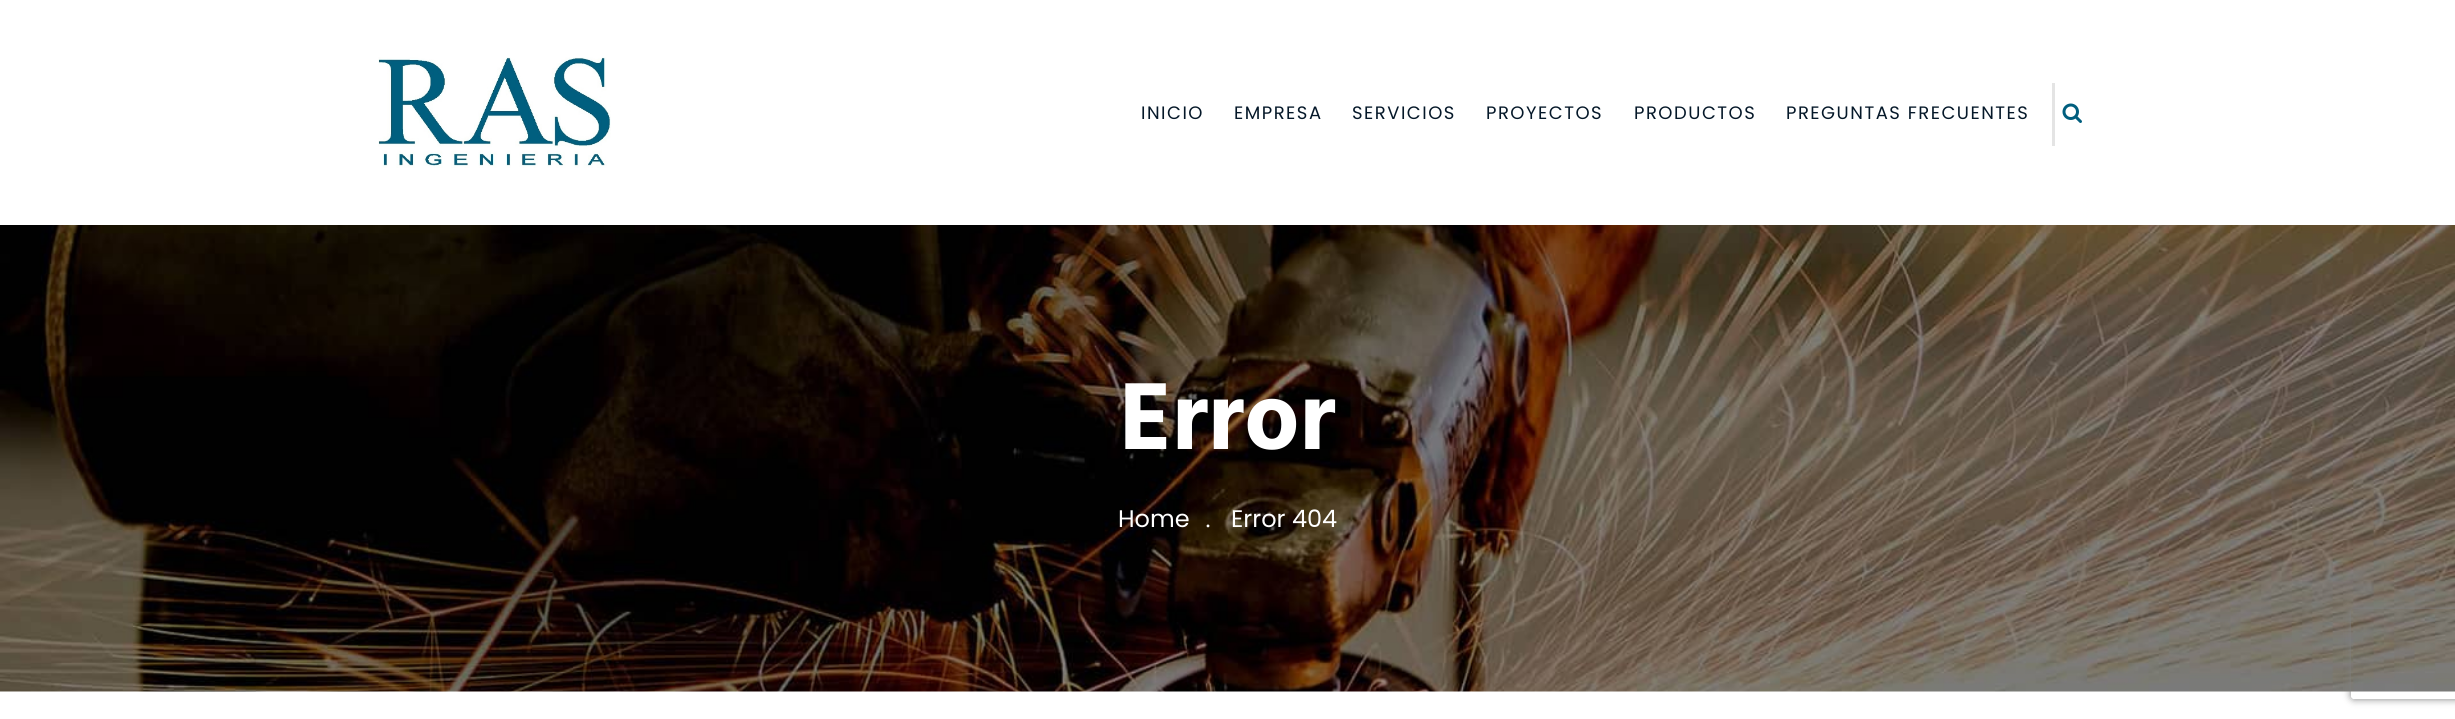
#include <cairo.h>
#include <math.h>
#include <stddef.h>

static cairo_t *c;
static void C(unsigned color){cairo_set_source_rgb(c, (color >> 16) / 255.0, (color >> 8 & 255) / 255.0, (color & 255) / 255.0);}
static void F(const char *family, double size, int italic, int bold){cairo_select_font_face(c, family, italic ? CAIRO_FONT_SLANT_ITALIC : CAIRO_FONT_SLANT_NORMAL,bold ? CAIRO_FONT_WEIGHT_BOLD : CAIRO_FONT_WEIGHT_NORMAL);cairo_set_font_size(c, size);}
static void T(double x, double y, const char *s){cairo_move_to(c, x, y);cairo_show_text(c, s);}
static void L(double x, double y, const char *s, double letter, double word){cairo_move_to(c, x, y);while (*s) {char ch[5] = {0};int n = 0;do ch[n++] = *s++; while ((*s & 0xC0) == 0x80);cairo_show_text(c, ch);cairo_rel_move_to(c, letter + word * (*ch == ' '), 0);}}
static void R(double x, double y, double w, double h){cairo_rectangle(c, x, y, w, h);cairo_fill(c);}
static void Q(double x, double y, double w, double h, double r){cairo_new_sub_path(c);cairo_arc(c, x + w - r, y + h - r, r, 0, M_PI / 2);cairo_arc(c, x + r, y + h - r, r, M_PI / 2, M_PI);cairo_arc(c, x + r, y + r, r, M_PI, 1.5 * M_PI);cairo_arc(c, x + w - r, y + r, r, 1.5 * M_PI, 2 * M_PI);cairo_close_path(c);}
static void S(double x, double y, double w, double h, double r, double blur, double alpha){cairo_push_group_with_content(c, CAIRO_CONTENT_ALPHA);cairo_set_operator(c, CAIRO_OPERATOR_SOURCE);for (int i = 15; i >= -15 && fmin(w, h) + blur * i / 3 > 0; i -= 2) {double e = blur * i / 6;cairo_set_source_rgba(c, 0, 0, 0, alpha * erfc((i - 1) / 8.5) / 2);Q(x - e, y - e, w + 2 * e, h + 2 * e, fmax(0, fmin(r + e + blur * .6, fmin(w, h) / 2 + e)));cairo_fill(c);}cairo_pattern_t *soft = cairo_pop_group(c);cairo_mask(c, soft);cairo_pattern_destroy(soft);}
static void I(const char *path, double x, double y, double w, double h){cairo_surface_t *image = cairo_image_surface_create_from_png(path);cairo_save(c);cairo_set_source_surface(c, image, x, y);cairo_rectangle(c, x, y, w, h);cairo_fill(c);cairo_restore(c);cairo_surface_destroy(image);}
int main(void) {
cairo_surface_t *surface = cairo_image_surface_create(CAIRO_FORMAT_RGB24, 2455, 719);
c = cairo_create(surface);
cairo_font_options_t *options = cairo_font_options_create();
cairo_font_options_set_hint_metrics(options, CAIRO_HINT_METRICS_OFF);
cairo_font_options_set_hint_style(options, CAIRO_HINT_STYLE_NONE);
cairo_set_font_options(c, options);
cairo_set_miter_limit(c, 4);
C(0xffffff);
cairo_paint(c);
I("1.png",378,57,233,111);
F("Poppins",18,0,0);
C(0x051829);
L(1141,119,"INICIO",1.5,0);
L(1234,119,"EMPRESA",1.5,0);
L(1352,119,"SERVICIOS",1.5,0);
L(1486,119,"PROYECTOS",1.5,0);
L(1634,119,"PRODUCTOS",1.5,0);
L(1786,119,"PREGUNTAS FRECUENTES",1.5,0);
C(0xe4e4e4);
R(2052,83,3,63);
I("2.png",2062,103,20,20);
I("3.png",0,225,2455,467);
F("Hind",97.5,0,1);
C(0xffffff);
T(1119,449,"Error");
F("Poppins",24,0,0);
T(1118,527,"Home");
F("Liberation Serif",24,0,0);
T(1205,527,".");
F("Poppins",24,0,0);
T(1231,527,"Error 404");
cairo_save(c);
cairo_set_fill_rule(c,CAIRO_FILL_RULE_EVEN_ODD);
cairo_new_path(c);
cairo_move_to(c,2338,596);
cairo_line_to(c,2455,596);
cairo_line_to(c,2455,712);
cairo_line_to(c,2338,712);
cairo_close_path(c);
cairo_move_to(c,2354,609);
cairo_line_to(c,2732,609);
cairo_curve_to(c,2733.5,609,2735,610.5,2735,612);
cairo_line_to(c,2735,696);
cairo_curve_to(c,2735,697.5,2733.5,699,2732,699);
cairo_line_to(c,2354,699);
cairo_curve_to(c,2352.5,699,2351,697.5,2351,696);
cairo_line_to(c,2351,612);
cairo_curve_to(c,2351,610.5,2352.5,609,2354,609);
cairo_close_path(c);
cairo_clip(c);
C(0x808080);
S(2351,609,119,90,3,4,1);
cairo_restore(c);
cairo_surface_write_to_png(surface, "o.png");
cairo_font_options_destroy(options);
cairo_destroy(c);
cairo_surface_destroy(surface);
return 0;
}
